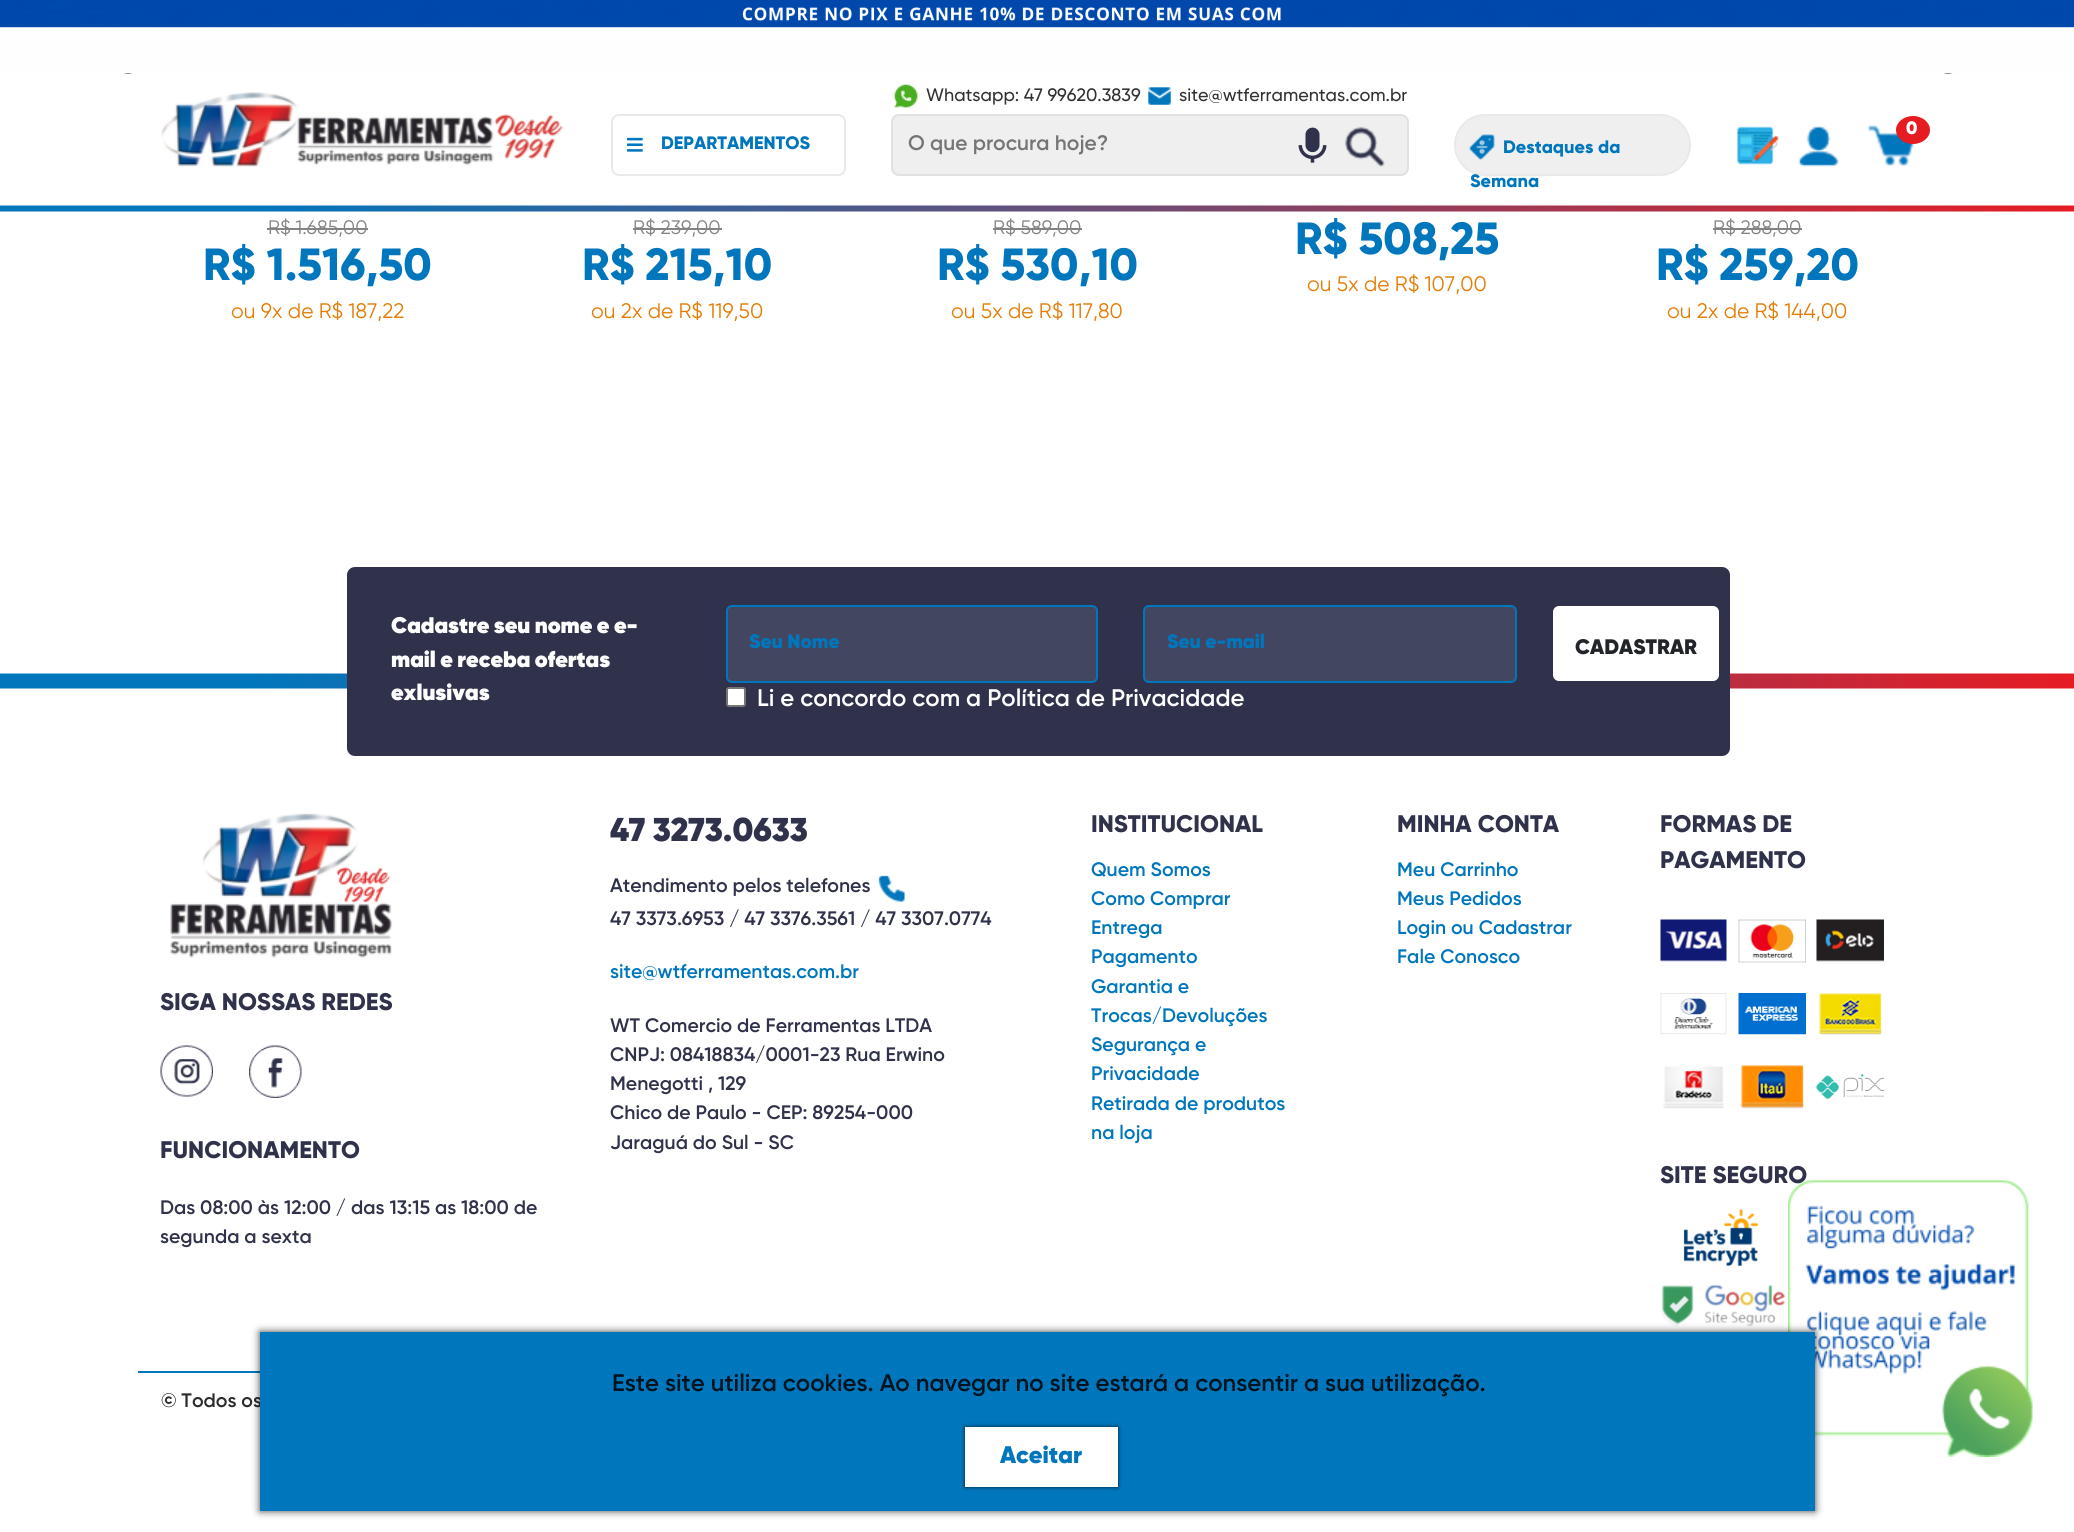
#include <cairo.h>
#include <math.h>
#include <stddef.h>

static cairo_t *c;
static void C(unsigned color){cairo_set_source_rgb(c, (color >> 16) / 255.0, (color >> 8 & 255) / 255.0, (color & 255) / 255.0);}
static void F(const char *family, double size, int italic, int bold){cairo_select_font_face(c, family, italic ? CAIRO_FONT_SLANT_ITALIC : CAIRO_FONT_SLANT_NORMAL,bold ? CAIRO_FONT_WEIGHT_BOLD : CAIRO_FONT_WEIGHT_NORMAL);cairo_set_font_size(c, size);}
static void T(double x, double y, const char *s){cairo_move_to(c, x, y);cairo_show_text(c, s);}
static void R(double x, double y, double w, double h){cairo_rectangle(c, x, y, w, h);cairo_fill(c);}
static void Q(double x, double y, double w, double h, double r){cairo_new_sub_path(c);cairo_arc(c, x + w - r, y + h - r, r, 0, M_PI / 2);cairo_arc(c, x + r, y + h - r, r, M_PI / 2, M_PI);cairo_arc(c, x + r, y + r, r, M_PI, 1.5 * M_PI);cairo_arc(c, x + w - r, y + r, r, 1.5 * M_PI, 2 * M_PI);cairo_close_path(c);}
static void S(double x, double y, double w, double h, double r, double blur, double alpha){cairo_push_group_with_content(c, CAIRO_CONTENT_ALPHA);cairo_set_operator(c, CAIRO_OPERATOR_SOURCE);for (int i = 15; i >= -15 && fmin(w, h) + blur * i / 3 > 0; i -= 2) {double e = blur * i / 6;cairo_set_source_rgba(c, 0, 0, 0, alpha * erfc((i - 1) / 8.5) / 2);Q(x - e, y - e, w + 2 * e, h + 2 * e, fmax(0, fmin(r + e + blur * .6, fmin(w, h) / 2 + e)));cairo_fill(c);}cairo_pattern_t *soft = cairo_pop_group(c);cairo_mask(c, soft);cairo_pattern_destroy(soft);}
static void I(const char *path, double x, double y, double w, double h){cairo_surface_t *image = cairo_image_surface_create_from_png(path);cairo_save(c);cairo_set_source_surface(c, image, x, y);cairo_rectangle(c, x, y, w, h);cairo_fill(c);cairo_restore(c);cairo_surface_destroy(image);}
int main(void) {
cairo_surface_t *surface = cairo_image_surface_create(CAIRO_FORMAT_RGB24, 2074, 1532);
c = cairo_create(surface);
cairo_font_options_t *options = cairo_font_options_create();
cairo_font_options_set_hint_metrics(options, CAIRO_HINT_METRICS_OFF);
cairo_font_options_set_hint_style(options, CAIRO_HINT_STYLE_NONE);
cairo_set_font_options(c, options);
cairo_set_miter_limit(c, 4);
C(0xffffff);
cairo_paint(c);
I("13.png",116,73,17,1);
I("14.png",1943,73,17,1);
I("1.png",0,0,2074,74);
I("2.png",0,205,2074,7);
I("3.png",161,92,403,75);
I("4.png",894,84,24,24);
F("Gilroy Medium",18,0,0);
C(0x313133);
T(926,101,"Whatsapp: 47 99620.3839");
I("5.png",1148,87,23,18);
T(1179,101,"site@wtferramentas.com.br");
C(0xefefef);
Q(892,115,516,60,7);
cairo_fill_preserve(c);
C(0xe1e1e1);
cairo_stroke(c);
F("Gilroy SemiBold",21,0,0);
C(0x757575);
T(908,150,"O que procura hoje?");
I("6.png",1298,127,29,36);
I("7.png",1344,126,41,41);
I("8.png",1737,126,42,39);
I("9.png",1798,126,41,41);
I("10.png",1868,125,47,41);
C(0xe61c23);
cairo_new_path(c);
cairo_move_to(c,1913,116);
cairo_curve_to(c,1922.5,116,1930,122.5,1930,130);
cairo_curve_to(c,1930,137.5,1922.5,144,1913,144);
cairo_curve_to(c,1903.5,144,1896,137.5,1896,130);
cairo_curve_to(c,1896,122.5,1903.5,116,1913,116);
cairo_close_path(c);
cairo_fill(c);
F("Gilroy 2 Black",18,0,0);
C(0xffffff);
T(1906,134,"0");
Q(612,115,233,60,7);
C(0xe9e9e9);
cairo_stroke(c);
I("11.png",627,137,16,15);
F("Gilroy ExtraBold",18,0,0);
C(0x0076bd);
T(661,149,"DEPARTAMENTOS");
C(0xefefef);
Q(1455,115,235,60,30);
cairo_fill_preserve(c);
C(0xe9e9e9);
cairo_stroke(c);
I("12.png",1469,134,26,26);
C(0x0076bd);
T(1503,153,"Destaques da");
T(1470,187,"Semana");
F("Gilroy",19.5,0,0);
C(0x838383);
T(268,234,"R$ 1.685,00");
R(267,228,101,2);
F("Gilroy ExtraBold",45,0,0);
C(0x0076bd);
T(203,280,"R$ 1.516,50");
F("Gilroy",21,0,0);
C(0xe47b03);
T(231,318,"ou 9x de R$ 187,22");
F("Gilroy",19.5,0,0);
C(0x838383);
T(633,234,"R$ 239,00");
R(633,228,89,2);
F("Gilroy ExtraBold",45,0,0);
C(0x0076bd);
T(582,280,"R$ 215,10");
F("Gilroy",21,0,0);
C(0xe47b03);
T(591,318,"ou 2x de R$ 119,50");
F("Gilroy",19.5,0,0);
C(0x838383);
T(993,234,"R$ 589,00");
R(993,228,89,2);
F("Gilroy ExtraBold",45,0,0);
C(0x0076bd);
T(937,280,"R$ 530,10");
F("Gilroy",21,0,0);
C(0xe47b03);
T(951,318,"ou 5x de R$ 117,80");
F("Gilroy ExtraBold",45,0,0);
C(0x0076bd);
T(1295,254,"R$ 508,25");
F("Gilroy",21,0,0);
C(0xe47b03);
T(1307,291,"ou 5x de R$ 107,00");
F("Gilroy",19.5,0,0);
C(0x838383);
T(1713,234,"R$ 288,00");
R(1713,228,89,2);
F("Gilroy ExtraBold",45,0,0);
C(0x0076bd);
T(1656,280,"R$ 259,20");
F("Gilroy",21,0,0);
C(0xe47b03);
T(1667,318,"ou 2x de R$ 144,00");
I("15.png",0,673,2074,16);
C(0x2f324a);
Q(347,567,1383,189,8);
cairo_fill(c);
F("Gilroy Black",22.5,0,0);
C(0xffffff);
T(391,633,"Cadastre seu nome e e-");
T(391,667,"mail e receba ofertas");
T(391,700,"exlusivas");
C(0x434660);
Q(727,606,370,76,5);
cairo_fill_preserve(c);
C(0x0076bd);
cairo_stroke(c);
F("Gilroy 2 Black",19.5,0,0);
T(749,648,"Seu Nome");
C(0x434660);
Q(1144,606,372,76,5);
cairo_fill_preserve(c);
C(0x0076bd);
cairo_stroke(c);
T(1167,648,"Seu e-mail");
C(0xffffff);
Q(1553,606,166,75,6);
cairo_fill(c);
F("Gilroy 2 Black",21,0,0);
C(0x212529);
T(1575,654,"CADASTRAR");
C(0xffffff);
Q(727,688,18,18,2);
cairo_fill_preserve(c);
C(0x767676);
cairo_stroke(c);
F("Gilroy SemiBold",24,0,0);
C(0xffffff);
T(757,706,"Li e concordo com a Política de Privacidade");
I("16.png",170,813,223,145);
F("Gilroy ExtraBold",24,0,0);
C(0x2f324a);
T(160,1010,"SIGA NOSSAS REDES");
I("17.png",160,1045,53,52);
I("18.png",249,1045,53,53);
T(160,1158,"FUNCIONAMENTO");
F("Gilroy SemiBold",19.5,0,0);
T(160,1214,"Das 08:00 às 12:00 / das 13:15 as 18:00 de");
T(160,1243,"segunda a sexta");
F("Gilroy 2 Black",33,0,0);
T(610,841,"47 3273.0633");
F("Gilroy SemiBold",19.5,0,0);
T(610,892,"Atendimento pelos telefones");
I("19.png",878,875,27,27);
T(610,925,"47 3373.6953 / 47 3376.3561 / 47 3307.0774");
C(0x0076bd);
T(610,978,"site@wtferramentas.com.br");
C(0x2f324a);
T(610,1032,"WT Comercio de Ferramentas LTDA");
T(610,1061,"CNPJ: 08418834/0001-23 Rua Erwino");
T(610,1090,"Menegotti , 129");
T(610,1119,"Chico de Paulo - CEP: 89254-000");
T(610,1149,"Jaraguá do Sul - SC");
F("Gilroy ExtraBold",24,0,0);
T(1091,832,"INSTITUCIONAL");
F("Gilroy SemiBold",19.5,0,0);
C(0x0076bd);
T(1091,876,"Quem Somos");
T(1091,905,"Como Comprar");
T(1091,934,"Entrega");
T(1091,963,"Pagamento");
T(1091,993,"Garantia e");
T(1091,1022,"Trocas/Devoluções");
T(1091,1051,"Segurança e");
T(1091,1080,"Privacidade");
T(1091,1110,"Retirada de produtos");
T(1091,1139,"na loja");
F("Gilroy ExtraBold",24,0,0);
C(0x2f324a);
T(1397,832,"MINHA CONTA");
F("Gilroy SemiBold",19.5,0,0);
C(0x0076bd);
T(1397,876,"Meu Carrinho");
T(1397,905,"Meus Pedidos");
T(1397,934,"Login ou Cadastrar");
T(1397,963,"Fale Conosco");
F("Gilroy ExtraBold",24,0,0);
C(0x2f324a);
T(1660,832,"FORMAS DE");
T(1660,868,"PAGAMENTO");
I("20.png",1660,919,67,43);
I("21.png",1738,919,68,44);
I("22.png",1816,919,68,43);
I("23.png",1660,993,67,42);
I("24.png",1738,993,68,42);
I("25.png",1818,993,64,42);
I("26.png",1663,1066,61,43);
I("27.png",1740,1065,64,44);
I("28.png",1816,1074,68,25);
T(1660,1183,"SITE SEGURO");
I("29.png",1683,1209,76,57);
I("30.png",1661,1284,125,43);
C(0x0076bd);
R(138,1371,122,2);
F("Gilroy SemiBold",19.5,0,0);
C(0x2b2b2b);
T(161,1407,"© Todos os");
I("31.png",1788,1180,245,277);
C(0x000000);
S(260,1332,1555,179,0,4,.75);
C(0x0076bd);
R(260,1332,1555,179);
F("Gilroy SemiBold",24,0,0);
C(0x001420);
T(612,1391,"Este site utiliza cookies. Ao navegar no site estará a consentir a sua utilização.");
C(0x000000);
S(965,1427,153,60,0,2,.75);
C(0xffffff);
R(965,1427,153,60);
F("Gilroy 2 Black",24,0,0);
C(0x0076bd);
T(1000,1463,"Aceitar");
cairo_surface_write_to_png(surface, "o.png");
cairo_font_options_destroy(options);
cairo_destroy(c);
cairo_surface_destroy(surface);
return 0;
}
